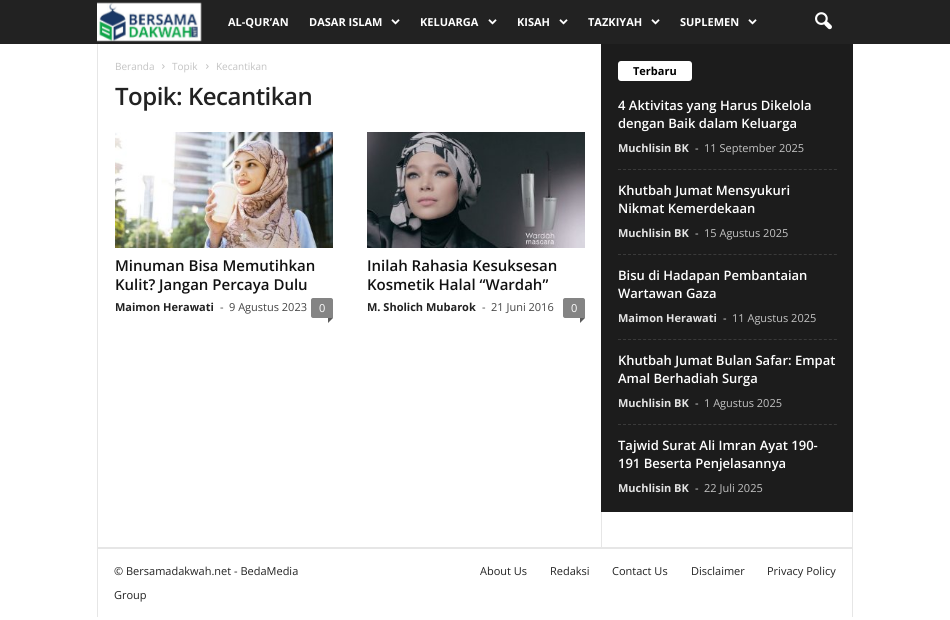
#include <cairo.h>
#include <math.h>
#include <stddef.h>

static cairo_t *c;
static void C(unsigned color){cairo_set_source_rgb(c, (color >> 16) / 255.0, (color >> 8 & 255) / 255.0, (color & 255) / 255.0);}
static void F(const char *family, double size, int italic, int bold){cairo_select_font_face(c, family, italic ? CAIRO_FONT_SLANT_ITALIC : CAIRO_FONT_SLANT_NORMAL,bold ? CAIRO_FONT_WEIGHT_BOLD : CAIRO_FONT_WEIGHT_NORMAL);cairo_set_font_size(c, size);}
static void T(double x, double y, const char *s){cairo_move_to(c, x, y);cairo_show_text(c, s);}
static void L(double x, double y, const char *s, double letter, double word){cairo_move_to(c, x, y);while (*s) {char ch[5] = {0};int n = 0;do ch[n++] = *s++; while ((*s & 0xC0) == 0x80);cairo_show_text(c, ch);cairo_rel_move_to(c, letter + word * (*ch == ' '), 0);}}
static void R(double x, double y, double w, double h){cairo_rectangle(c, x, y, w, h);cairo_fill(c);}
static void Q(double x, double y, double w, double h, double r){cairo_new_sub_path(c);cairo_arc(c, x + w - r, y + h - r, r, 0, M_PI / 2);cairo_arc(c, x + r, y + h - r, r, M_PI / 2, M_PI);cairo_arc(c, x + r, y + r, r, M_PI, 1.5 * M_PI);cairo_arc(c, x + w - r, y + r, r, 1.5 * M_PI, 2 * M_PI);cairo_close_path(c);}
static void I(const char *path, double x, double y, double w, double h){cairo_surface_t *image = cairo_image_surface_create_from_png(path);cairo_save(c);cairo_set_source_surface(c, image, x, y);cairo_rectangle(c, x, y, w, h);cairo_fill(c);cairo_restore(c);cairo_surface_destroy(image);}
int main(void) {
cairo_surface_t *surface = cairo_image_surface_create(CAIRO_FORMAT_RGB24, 950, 620);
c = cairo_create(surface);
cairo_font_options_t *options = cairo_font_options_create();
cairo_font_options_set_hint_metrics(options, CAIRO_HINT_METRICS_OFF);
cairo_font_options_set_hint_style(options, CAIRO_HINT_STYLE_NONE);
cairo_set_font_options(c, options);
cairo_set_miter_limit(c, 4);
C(0xffffff);
cairo_paint(c);
C(0x222222);
R(0,0,950,44);
I("1.png",97,2,105,40);
F("Open Sans",11,0,1);
C(0xffffff);
T(228,26,"AL-QUR’AN");
T(309,26,"DASAR ISLAM");
I("2.png",391,19,9,6);
T(420,26,"KELUARGA");
I("2.png",488,19,9,6);
T(517,26,"KISAH");
I("2.png",559,19,9,6);
T(588,26,"TAZKIYAH");
I("2.png",651,19,9,6);
T(680,26,"SUPLEMEN");
I("2.png",748,19,9,6);
I("3.png",815,12,17,18);
C(0xe6e6e6);
R(97,44,1,503);
F("Open Sans",10,0,0);
C(0xc3c3c3);
T(115,70,"Beranda");
I("4.png",162,64,3,5);
T(172,70,"Topik");
I("4.png",206,64,3,5);
T(216,70,"Kecantikan");
F("Open Sans SemiBold",24,0,0);
C(0x222222);
L(115,105,"Topik: Kecantikan",-.5,0);
I("5.png",115,132,218,116);
F("Open Sans SemiBold",15,0,0);
C(0x111111);
T(115,271,"Minuman Bisa Memutihkan");
T(115,290,"Kulit? Jangan Percaya Dulu");
F("Open Sans",11,0,1);
C(0x222222);
T(115,311,"Maimon Herawati");
F("Open Sans",11,0,0);
C(0x444444);
T(220,311,"-");
T(229,311,"9 Agustus 2023");
C(0x848484);
cairo_new_path(c);
cairo_move_to(c,313,298);
cairo_line_to(c,331,298);
cairo_curve_to(c,332,298,333,299,333,300);
cairo_line_to(c,333,318);
cairo_line_to(c,313,318);
cairo_curve_to(c,312,318,311,317,311,316);
cairo_line_to(c,311,300);
cairo_curve_to(c,311,299,312,298,313,298);
cairo_close_path(c);
cairo_fill(c);
C(0xffffff);
T(319,312,"0");
C(0x5b5b5b);
cairo_new_path(c);
cairo_move_to(c,328,318);
cairo_line_to(c,333,318);
cairo_line_to(c,328,323);
cairo_close_path(c);
cairo_fill(c);
I("6.png",367,132,218,116);
F("Open Sans SemiBold",15,0,0);
C(0x111111);
T(367,271,"Inilah Rahasia Kesuksesan");
T(367,290,"Kosmetik Halal “Wardah”");
F("Open Sans",11,0,1);
C(0x222222);
T(367,311,"M. Sholich Mubarok");
F("Open Sans",11,0,0);
C(0x444444);
T(482,311,"-");
T(491,311,"21 Juni 2016");
C(0x848484);
cairo_new_path(c);
cairo_move_to(c,565,298);
cairo_line_to(c,583,298);
cairo_curve_to(c,584,298,585,299,585,300);
cairo_line_to(c,585,318);
cairo_line_to(c,565,318);
cairo_curve_to(c,564,318,563,317,563,316);
cairo_line_to(c,563,300);
cairo_curve_to(c,563,299,564,298,565,298);
cairo_close_path(c);
cairo_fill(c);
C(0xffffff);
T(571,312,"0");
C(0x5b5b5b);
cairo_new_path(c);
cairo_move_to(c,580,318);
cairo_line_to(c,585,318);
cairo_line_to(c,580,323);
cairo_close_path(c);
cairo_fill(c);
C(0xe6e6e6);
R(601,512,1,35);
C(0x1c1c1c);
R(601,44,252,468);
C(0xffffff);
Q(618,61,74,20,3);
cairo_fill(c);
F("Open Sans",11,0,1);
C(0x000000);
T(633,75,"Terbaru");
cairo_new_path(c);
cairo_move_to(c,618,169.5);
cairo_line_to(c,837,169.5);
C(0x3a3a3a);
cairo_set_line_width(c,1);
cairo_set_dash(c,(double[]){3,2.02},2,0);
cairo_stroke(c);
F("Open Sans SemiBold",13,0,0);
C(0xffffff);
T(618,110,"4 Aktivitas yang Harus Dikelola");
T(618,128,"dengan Baik dalam Keluarga");
F("Open Sans",11,0,1);
C(0xe2e2e2);
T(618,152,"Muchlisin BK");
F("Open Sans",11,0,0);
T(695,152,"-");
C(0xc3c3c3);
T(704,152,"11 September 2025");
cairo_new_path(c);
cairo_move_to(c,618,254.5);
cairo_line_to(c,837,254.5);
C(0x3a3a3a);
cairo_stroke(c);
F("Open Sans SemiBold",13,0,0);
C(0xffffff);
T(618,195,"Khutbah Jumat Mensyukuri");
T(618,213,"Nikmat Kemerdekaan");
F("Open Sans",11,0,1);
C(0xe2e2e2);
T(618,237,"Muchlisin BK");
F("Open Sans",11,0,0);
T(695,237,"-");
C(0xc3c3c3);
T(704,237,"15 Agustus 2025");
cairo_new_path(c);
cairo_move_to(c,618,339.5);
cairo_line_to(c,837,339.5);
C(0x3a3a3a);
cairo_stroke(c);
F("Open Sans SemiBold",13,0,0);
C(0xffffff);
T(618,280,"Bisu di Hadapan Pembantaian");
T(618,298,"Wartawan Gaza");
F("Open Sans",11,0,1);
C(0xe2e2e2);
T(618,322,"Maimon Herawati");
F("Open Sans",11,0,0);
T(723,322,"-");
C(0xc3c3c3);
T(732,322,"11 Agustus 2025");
cairo_new_path(c);
cairo_move_to(c,618,424.5);
cairo_line_to(c,837,424.5);
C(0x3a3a3a);
cairo_stroke(c);
F("Open Sans SemiBold",13,0,0);
C(0xffffff);
T(618,365,"Khutbah Jumat Bulan Safar: Empat");
T(618,383,"Amal Berhadiah Surga");
F("Open Sans",11,0,1);
C(0xe2e2e2);
T(618,407,"Muchlisin BK");
F("Open Sans",11,0,0);
T(695,407,"-");
C(0xc3c3c3);
T(704,407,"1 Agustus 2025");
F("Open Sans SemiBold",13,0,0);
C(0xffffff);
T(618,450,"Tajwid Surat Ali Imran Ayat 190-");
T(618,468,"191 Beserta Penjelasannya");
F("Open Sans",11,0,1);
C(0xe2e2e2);
T(618,492,"Muchlisin BK");
F("Open Sans",11,0,0);
T(695,492,"-");
C(0xc3c3c3);
T(704,492,"22 Juli 2025");
C(0xe6e6e6);
R(852,512,1,35);
R(97,547,756,2);
R(97,549,1,68);
C(0x222222);
T(114,575,"© Bersamadakwah.net - BedaMedia");
T(114,599,"Group");
T(480,575,"About Us");
T(550,575,"Redaksi");
T(612,575,"Contact Us");
T(691,575,"Disclaimer");
T(767,575,"Privacy Policy");
C(0xe6e6e6);
R(852,549,1,68);
cairo_surface_write_to_png(surface, "o.png");
cairo_font_options_destroy(options);
cairo_destroy(c);
cairo_surface_destroy(surface);
return 0;
}
